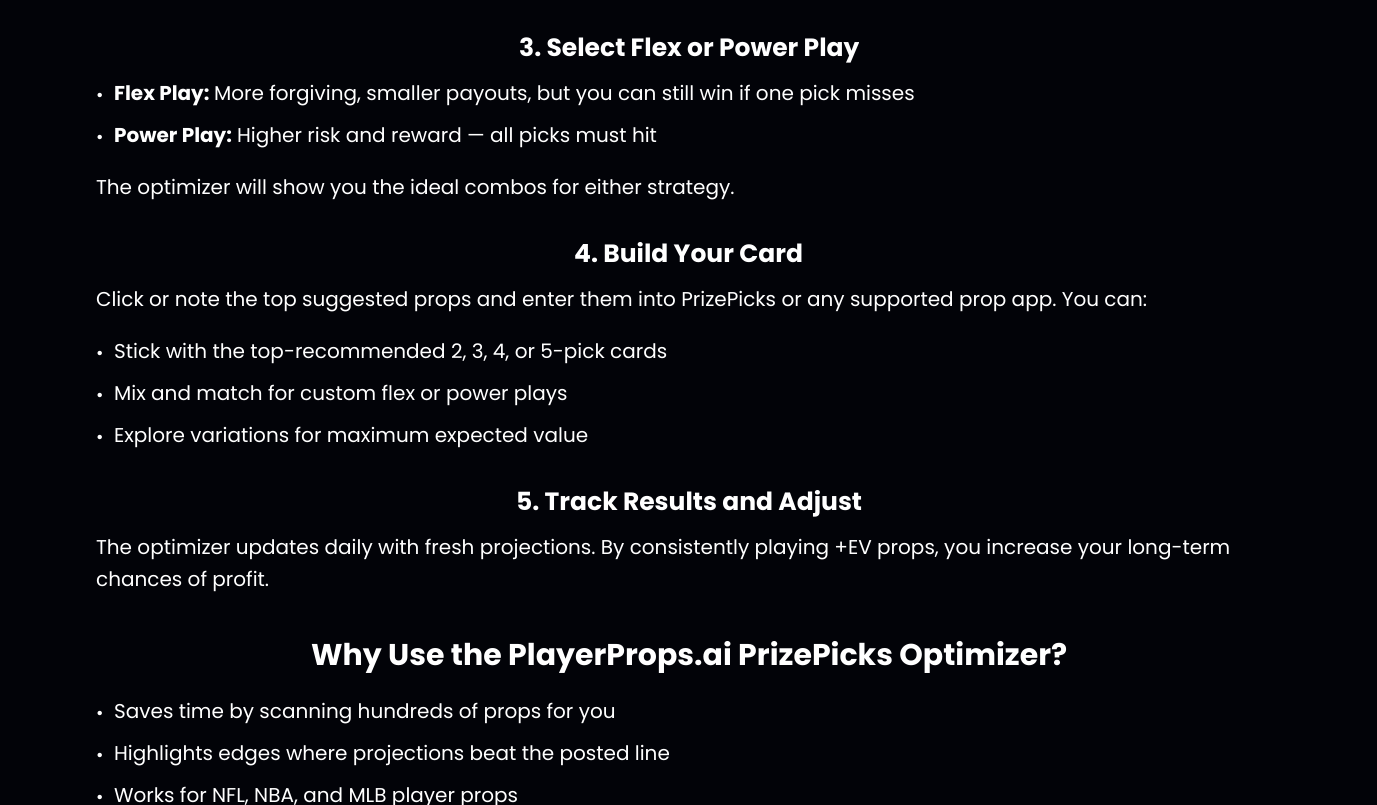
#include <cairo.h>
#include <math.h>
#include <stddef.h>

static cairo_t *c;
static void C(unsigned color){cairo_set_source_rgb(c, (color >> 16) / 255.0, (color >> 8 & 255) / 255.0, (color & 255) / 255.0);}
static void F(const char *family, double size, int italic, int bold){cairo_select_font_face(c, family, italic ? CAIRO_FONT_SLANT_ITALIC : CAIRO_FONT_SLANT_NORMAL,bold ? CAIRO_FONT_WEIGHT_BOLD : CAIRO_FONT_WEIGHT_NORMAL);cairo_set_font_size(c, size);}
static void T(double x, double y, const char *s){cairo_move_to(c, x, y);cairo_show_text(c, s);}
int main(void) {
cairo_surface_t *surface = cairo_image_surface_create(CAIRO_FORMAT_RGB24, 1377, 805);
c = cairo_create(surface);
cairo_font_options_t *options = cairo_font_options_create();
cairo_font_options_set_hint_metrics(options, CAIRO_HINT_METRICS_OFF);
cairo_font_options_set_hint_style(options, CAIRO_HINT_STYLE_NONE);
cairo_set_font_options(c, options);
cairo_set_miter_limit(c, 4);
C(0x020308);
cairo_paint(c);
F("Poppins",25,0,1);
C(0xffffff);
T(519,56,"3. Select Flex or Power Play");
F("Poppins",18,0,0);
T(96,101,"•");
F("Poppins",20,0,1);
T(114,100,"Flex Play:");
F("Poppins",20,0,0);
T(214,100,"More forgiving, smaller payouts, but you can still win if one pick misses");
F("Poppins",18,0,0);
T(96,143,"•");
F("Poppins",20,0,1);
T(114,142,"Power Play:");
F("Poppins",20,0,0);
T(237,142,"Higher risk and reward — all picks must hit");
T(96,194,"The optimizer will show you the ideal combos for either strategy.");
F("Poppins",25,0,1);
T(574,262,"4. Build Your Card");
F("Poppins",20,0,0);
T(96,306,"Click or note the top suggested props and enter them into PrizePicks or any supported prop app. You can:");
F("Poppins",18,0,0);
T(96,359,"•");
F("Poppins",20,0,0);
T(114,358,"Stick with the top-recommended 2, 3, 4, or 5-pick cards");
F("Poppins",18,0,0);
T(96,401,"•");
F("Poppins",20,0,0);
T(114,400,"Mix and match for custom flex or power plays");
F("Poppins",18,0,0);
T(96,443,"•");
F("Poppins",20,0,0);
T(114,442,"Explore variations for maximum expected value");
F("Poppins",25,0,1);
T(516,510,"5. Track Results and Adjust");
F("Poppins",20,0,0);
T(96,554,"The optimizer updates daily with fresh projections. By consistently playing +EV props, you increase your long-term");
T(96,586,"chances of profit.");
F("Poppins",30,0,1);
T(311,665,"Why Use the PlayerProps.ai PrizePicks Optimizer?");
F("Poppins",18,0,0);
T(96,719,"•");
F("Poppins",20,0,0);
T(114,718,"Saves time by scanning hundreds of props for you");
F("Poppins",18,0,0);
T(96,761,"•");
F("Poppins",20,0,0);
T(114,760,"Highlights edges where projections beat the posted line");
F("Poppins",18,0,0);
T(96,803,"•");
F("Poppins",20,0,0);
T(114,802,"Works for NFL, NBA, and MLB player props");
cairo_surface_write_to_png(surface, "o.png");
cairo_font_options_destroy(options);
cairo_destroy(c);
cairo_surface_destroy(surface);
return 0;
}
